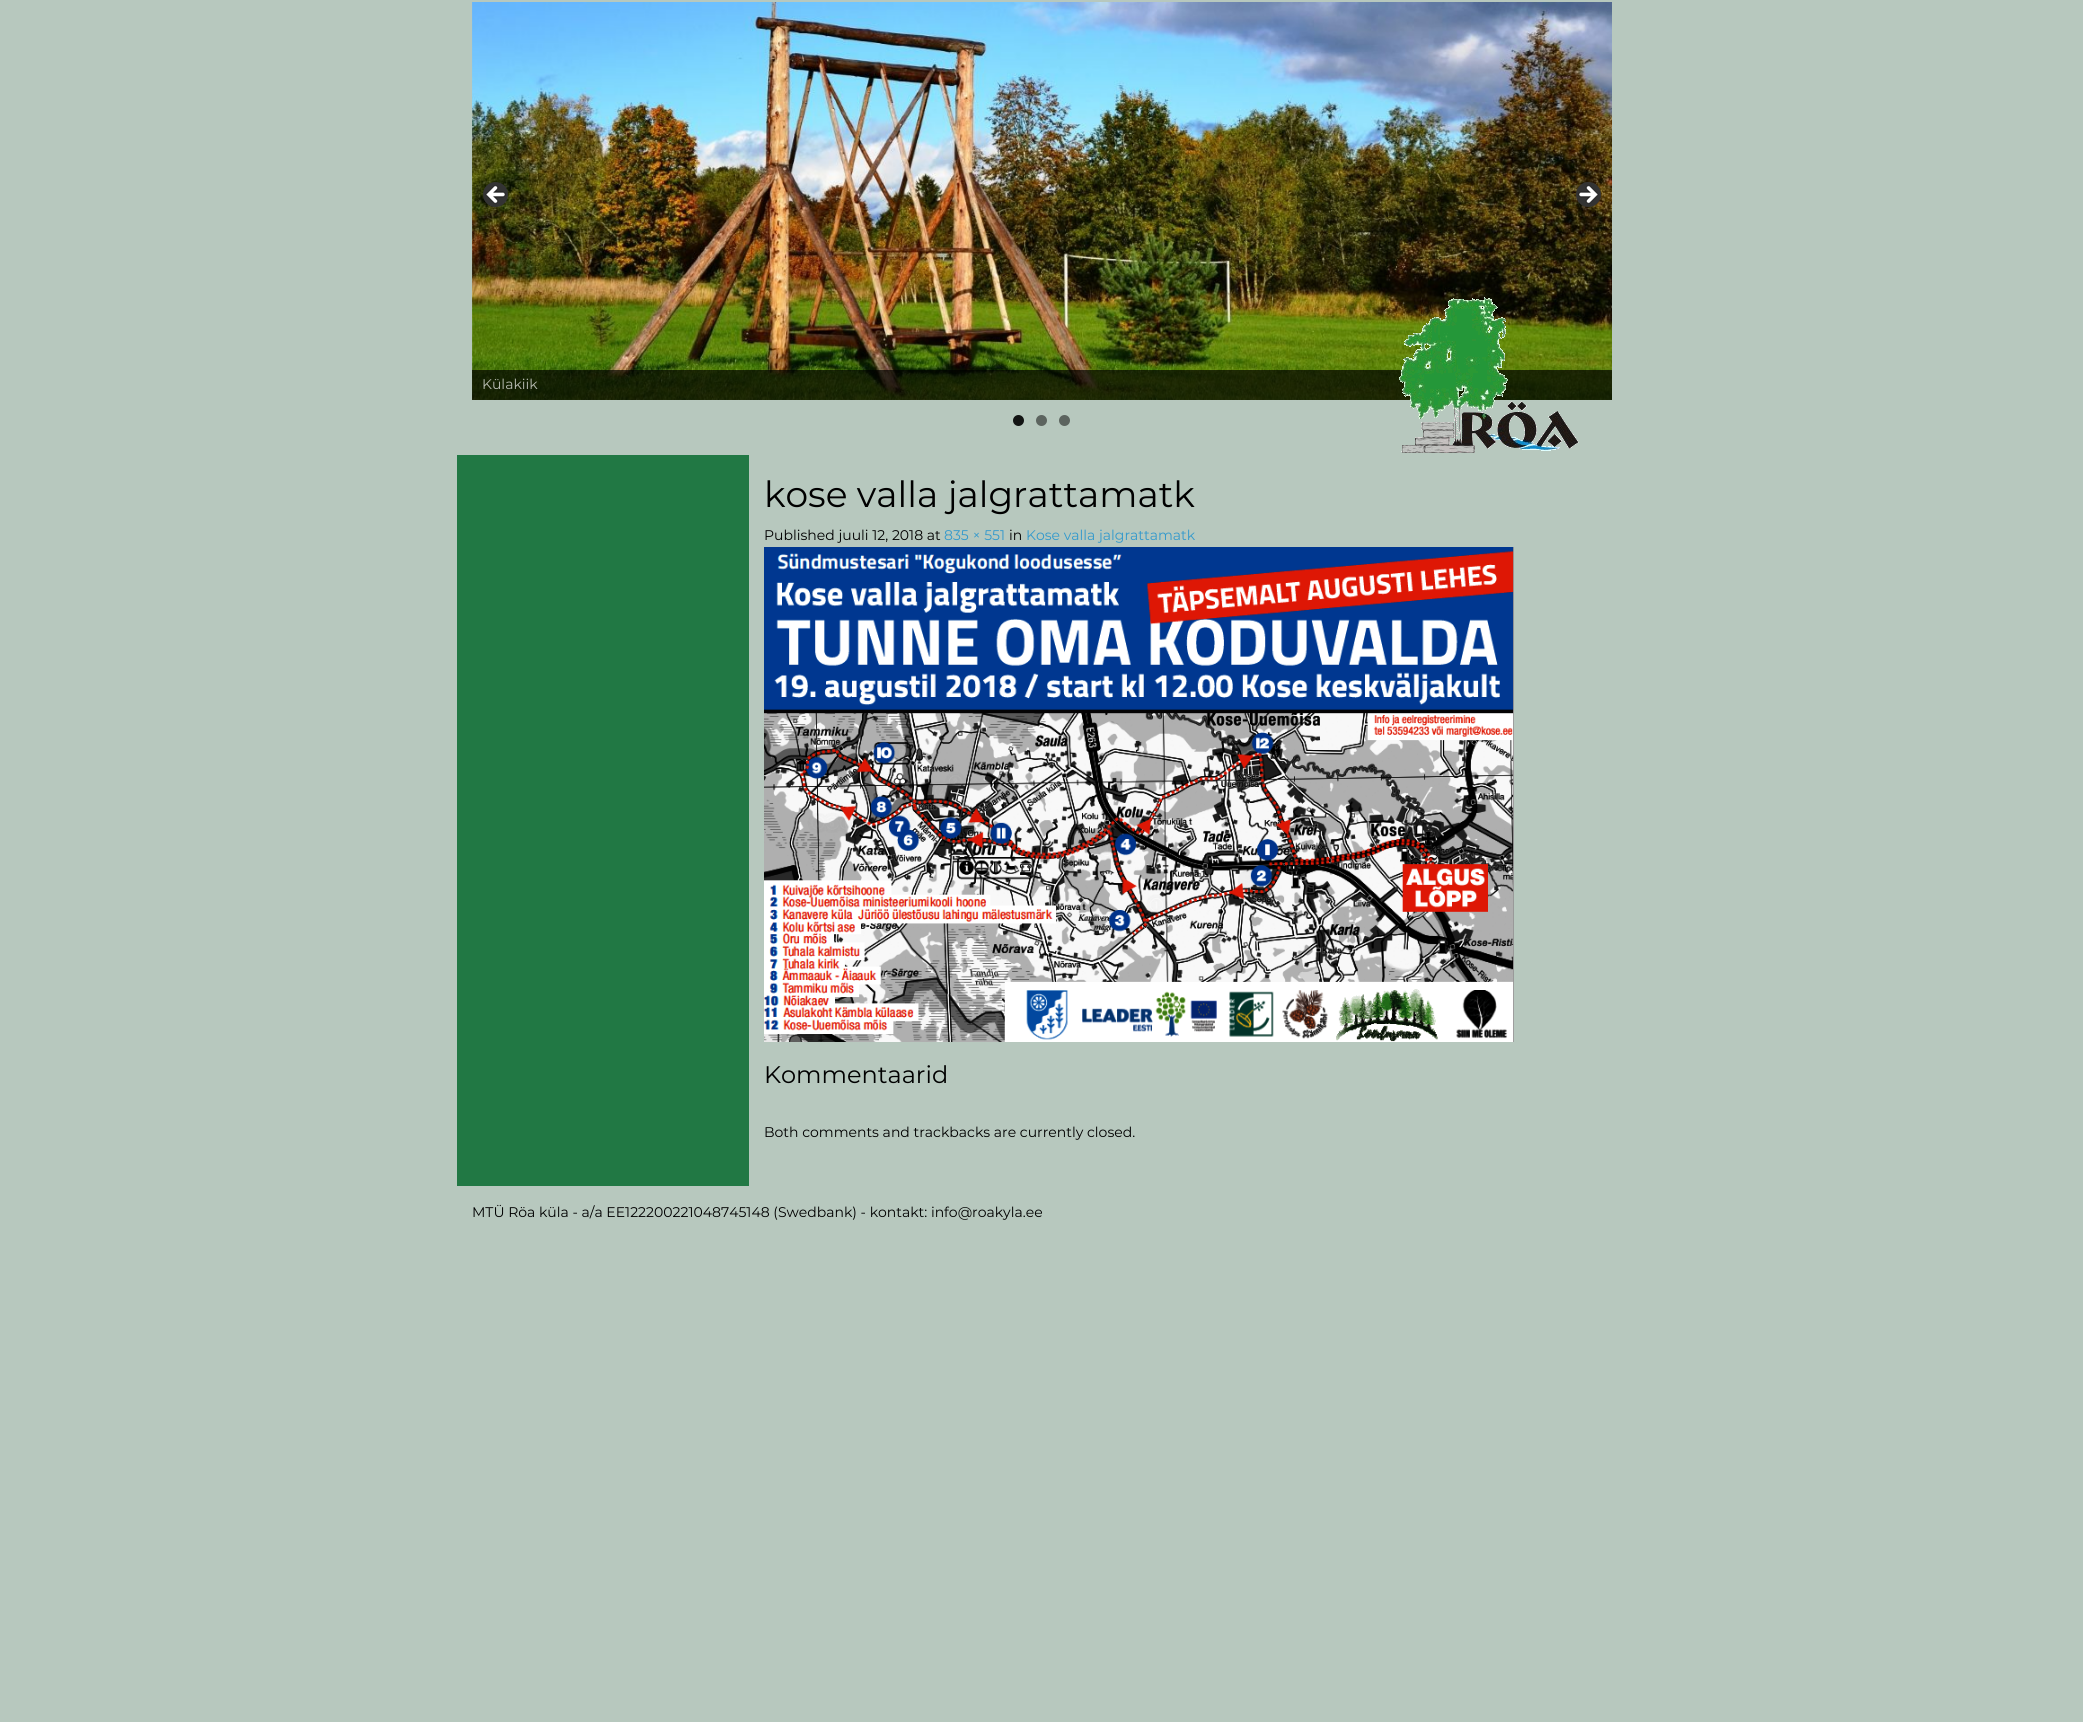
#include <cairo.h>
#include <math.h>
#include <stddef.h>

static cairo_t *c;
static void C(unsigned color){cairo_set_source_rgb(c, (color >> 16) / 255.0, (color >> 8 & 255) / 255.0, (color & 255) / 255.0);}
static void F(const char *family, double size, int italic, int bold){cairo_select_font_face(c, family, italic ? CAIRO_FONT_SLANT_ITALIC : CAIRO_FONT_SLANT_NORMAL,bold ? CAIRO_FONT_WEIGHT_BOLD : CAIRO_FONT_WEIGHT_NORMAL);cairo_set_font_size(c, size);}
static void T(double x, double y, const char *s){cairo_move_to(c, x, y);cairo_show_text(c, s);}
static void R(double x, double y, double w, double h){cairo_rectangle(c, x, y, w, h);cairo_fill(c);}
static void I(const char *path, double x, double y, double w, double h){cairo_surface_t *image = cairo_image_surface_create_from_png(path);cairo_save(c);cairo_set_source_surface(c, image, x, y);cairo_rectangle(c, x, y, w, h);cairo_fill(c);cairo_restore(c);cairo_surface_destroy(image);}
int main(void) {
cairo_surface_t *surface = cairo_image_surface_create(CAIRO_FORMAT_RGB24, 2083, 1722);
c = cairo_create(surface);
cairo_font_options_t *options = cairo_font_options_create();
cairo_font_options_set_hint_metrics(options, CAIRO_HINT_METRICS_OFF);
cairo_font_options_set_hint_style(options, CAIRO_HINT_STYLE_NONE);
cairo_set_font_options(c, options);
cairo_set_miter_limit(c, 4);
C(0xb7c8be);
cairo_paint(c);
I("3.png",472,2,1140,398);
I("1.png",483,182,25,25);
I("2.png",1576,182,25,25);
cairo_set_source_rgba(c,0,0,0,0.7);
R(472,370,1140,30);
F("Montserrat",14,0,0);
C(0xb9bdb3);
T(482,389,"Külakiik");
C(0x121413);
cairo_new_path(c);
cairo_arc(c,1018.5,420.5,5.5,0,2 * M_PI);
cairo_fill(c);
C(0x5c645f);
cairo_arc(c,1041.5,420.5,5.5,0,2 * M_PI);
cairo_fill(c);
cairo_arc(c,1064.5,420.5,5.5,0,2 * M_PI);
cairo_fill(c);
I("4.png",1399,297,180,156);
C(0x217844);
R(457,455,292,731);
F("Montserrat",36,0,0);
C(0x000000);
T(764,507,"kose valla jalgrattamatk");
F("Montserrat",14,0,0);
T(764,540,"Published juuli 12, 2018 at");
C(0x3399cc);
T(944,540,"835 × 551");
C(0x000000);
T(1009,540,"in");
C(0x3399cc);
T(1026,540,"Kose valla jalgrattamatk");
I("5.png",764,547,750,495);
F("Montserrat",24,0,0);
C(0x000000);
T(764,1083,"Kommentaarid");
F("Montserrat",14,0,0);
T(764,1137,"Both comments and trackbacks are currently closed.");
T(472,1217,"MTÜ Röa küla - a/a EE122200221048745148 (Swedbank) - kontakt: info@roakyla.ee");
cairo_surface_write_to_png(surface, "o.png");
cairo_font_options_destroy(options);
cairo_destroy(c);
cairo_surface_destroy(surface);
return 0;
}
